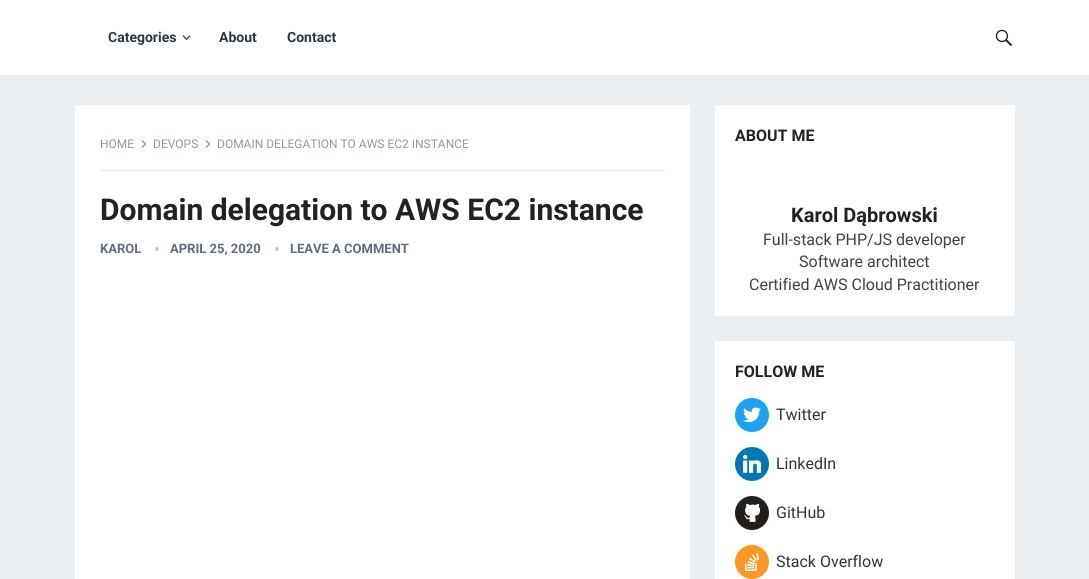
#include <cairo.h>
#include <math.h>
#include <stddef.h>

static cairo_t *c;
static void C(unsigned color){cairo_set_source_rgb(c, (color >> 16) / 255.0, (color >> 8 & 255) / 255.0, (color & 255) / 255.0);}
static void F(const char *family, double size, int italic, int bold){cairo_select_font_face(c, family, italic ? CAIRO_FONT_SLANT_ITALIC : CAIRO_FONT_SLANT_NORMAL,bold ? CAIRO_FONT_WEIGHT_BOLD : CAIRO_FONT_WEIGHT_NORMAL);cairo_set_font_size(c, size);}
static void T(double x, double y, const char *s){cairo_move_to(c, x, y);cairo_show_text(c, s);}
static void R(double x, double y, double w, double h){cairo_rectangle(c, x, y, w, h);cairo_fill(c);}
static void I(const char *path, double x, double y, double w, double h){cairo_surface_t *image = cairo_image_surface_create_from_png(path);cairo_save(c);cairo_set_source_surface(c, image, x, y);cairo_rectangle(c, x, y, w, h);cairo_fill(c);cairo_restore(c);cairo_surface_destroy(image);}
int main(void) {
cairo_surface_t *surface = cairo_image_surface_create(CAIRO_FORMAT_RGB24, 1089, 579);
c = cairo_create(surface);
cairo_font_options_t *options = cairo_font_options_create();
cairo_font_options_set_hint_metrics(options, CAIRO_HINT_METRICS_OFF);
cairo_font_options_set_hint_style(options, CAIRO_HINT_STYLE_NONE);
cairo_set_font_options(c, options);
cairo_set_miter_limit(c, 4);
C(0xeceff1);
cairo_paint(c);
C(0xffffff);
R(0,0,1089,75);
F("Roboto",14,0,1);
C(0x2c3644);
T(108,42,"Categories");
I("1.png",182,35,9,5);
T(219,42,"About");
T(287,42,"Contact");
I("2.png",995,29,18,18);
C(0xffffff);
R(75,105,615,474);
C(0xe9e9e9);
R(100,170,565,1);
F("Roboto",12,0,0);
C(0x8e99a9);
T(100,148,"HOME");
I("3.png",141,140,6,8);
T(153,148,"DEVOPS");
I("3.png",205,140,6,8);
T(217,148,"DOMAIN DELEGATION TO AWS EC2 INSTANCE");
F("Roboto",30,0,1);
C(0x222222);
T(100,220,"Domain delegation to AWS EC2 instance");
F("Roboto",13,0,1);
C(0x606c7e);
T(100,253,"KAROL");
C(0xcccccc);
cairo_new_path(c);
cairo_arc(c,157,249,2,0,2 * M_PI);
cairo_fill(c);
C(0x606c7e);
T(170,253,"APRIL 25, 2020");
C(0xcccccc);
cairo_new_path(c);
cairo_arc(c,277,249,2,0,2 * M_PI);
cairo_fill(c);
C(0x606c7e);
T(290,253,"LEAVE A COMMENT");
C(0xffffff);
R(715,105,300,211);
F("Roboto",16,0,1);
C(0x222222);
T(735,141,"ABOUT ME");
F("Roboto",20,0,1);
T(791,222,"Karol Dąbrowski");
F("Roboto",16,0,0);
C(0x414141);
T(763,245,"Full-stack PHP/JS developer");
T(799,267,"Software architect");
T(749,290,"Certified AWS Cloud Practitioner");
C(0xffffff);
R(715,341,300,238);
F("Roboto",16,0,1);
C(0x222222);
T(735,377,"FOLLOW ME");
C(0x1da1f2);
cairo_new_path(c);
cairo_arc(c,752,415,17,0,2 * M_PI);
cairo_fill(c);
I("4.png",743,407,18,16);
F("Roboto",16,0,0);
C(0x333333);
T(776,420,"Twitter");
C(0x0077b5);
cairo_new_path(c);
cairo_arc(c,752,464,17,0,2 * M_PI);
cairo_fill(c);
I("5.png",743,454,19,19);
C(0x333333);
T(776,469,"LinkedIn");
C(0x221e1b);
cairo_new_path(c);
cairo_arc(c,752,513,17,0,2 * M_PI);
cairo_fill(c);
I("6.png",744,503,16,19);
C(0x333333);
T(776,518,"GitHub");
C(0xfd9827);
cairo_new_path(c);
cairo_arc(c,752,562,17,0,2 * M_PI);
cairo_fill(c);
I("7.png",744,552,16,19);
C(0x333333);
T(776,567,"Stack Overflow");
cairo_surface_write_to_png(surface, "o.png");
cairo_font_options_destroy(options);
cairo_destroy(c);
cairo_surface_destroy(surface);
return 0;
}
